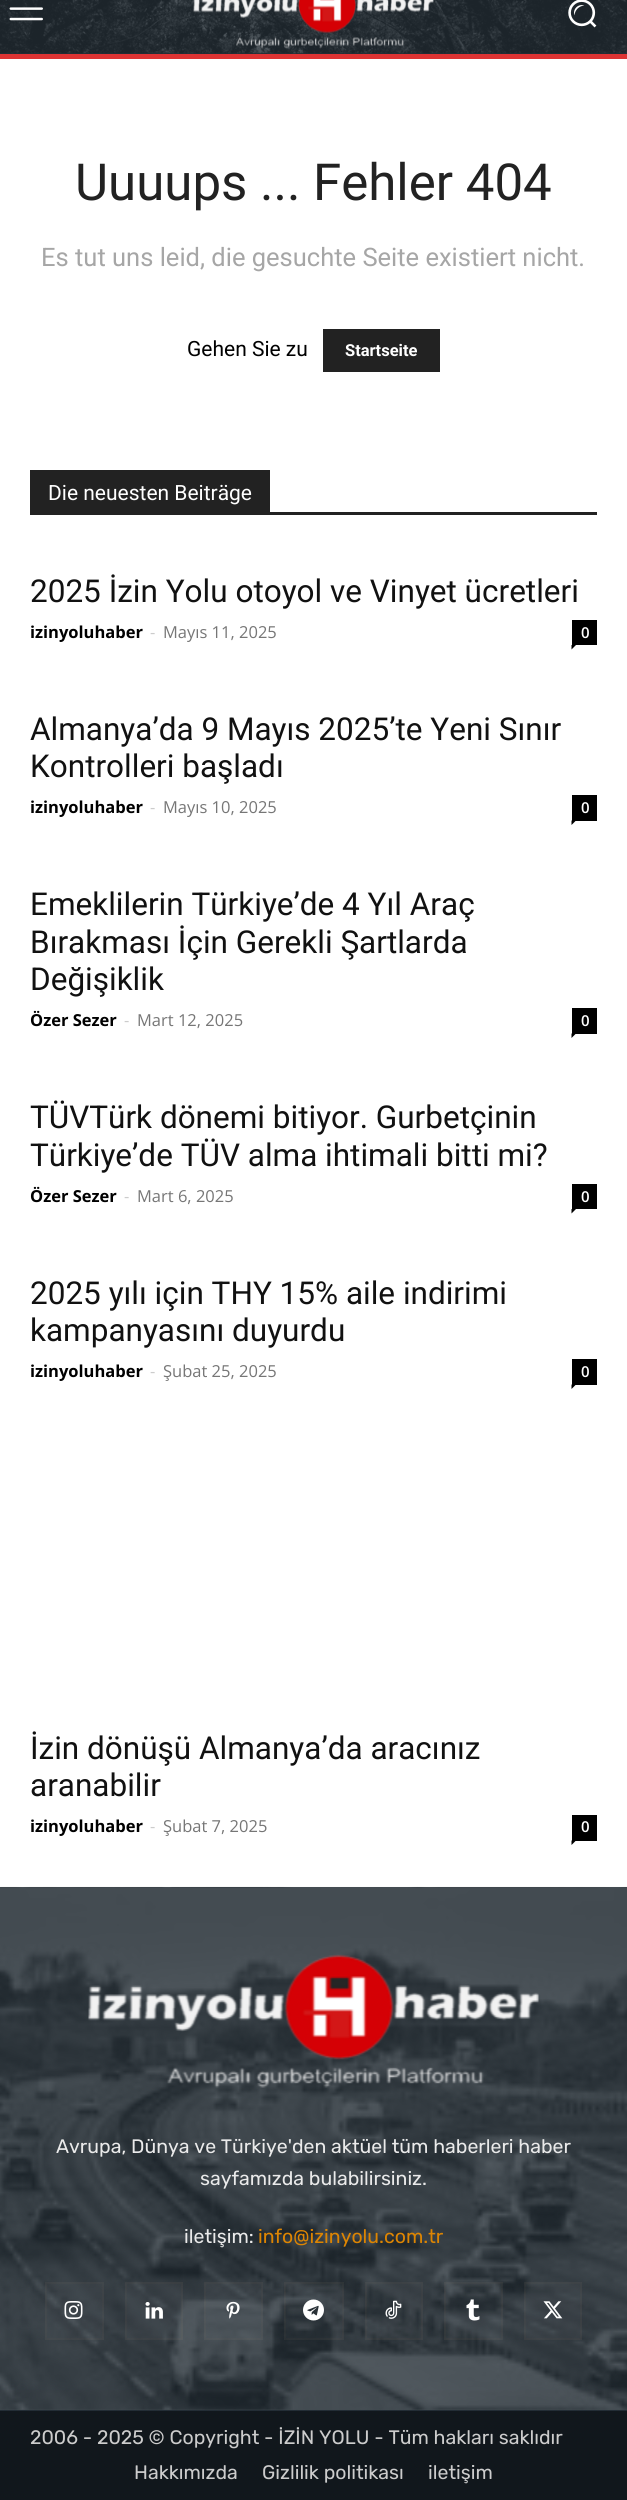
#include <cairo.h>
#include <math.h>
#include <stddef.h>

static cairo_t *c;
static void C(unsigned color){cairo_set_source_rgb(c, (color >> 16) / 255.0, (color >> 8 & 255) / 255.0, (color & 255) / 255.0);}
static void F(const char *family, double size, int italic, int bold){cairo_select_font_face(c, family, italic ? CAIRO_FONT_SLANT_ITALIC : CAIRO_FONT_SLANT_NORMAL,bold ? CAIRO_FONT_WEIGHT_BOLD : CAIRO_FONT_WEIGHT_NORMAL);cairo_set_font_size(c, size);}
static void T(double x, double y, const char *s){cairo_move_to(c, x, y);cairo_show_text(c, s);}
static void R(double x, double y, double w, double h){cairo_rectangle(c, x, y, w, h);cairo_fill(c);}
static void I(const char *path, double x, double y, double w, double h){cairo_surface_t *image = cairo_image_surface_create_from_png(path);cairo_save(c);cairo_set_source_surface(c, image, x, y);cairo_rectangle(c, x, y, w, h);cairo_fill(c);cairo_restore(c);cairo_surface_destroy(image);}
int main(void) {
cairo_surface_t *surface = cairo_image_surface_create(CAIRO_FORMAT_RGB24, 627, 2500);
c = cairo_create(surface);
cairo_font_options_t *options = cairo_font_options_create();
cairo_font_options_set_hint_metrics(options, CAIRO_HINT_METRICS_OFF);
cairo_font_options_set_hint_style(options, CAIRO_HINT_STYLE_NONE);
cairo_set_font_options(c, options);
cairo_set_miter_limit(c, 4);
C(0xffffff);
cairo_paint(c);
C(0x232d35);
R(0,0,627,54);
I("1.png",0,0,627,54);
I("2.png",9,7,34,14);
I("3.png",193,0,241,49);
I("4.png",568,0,29,28);
C(0xdd3333);
R(0,54,627,5);
F("Roboto",51,0,0);
C(0x222222);
T(75,200,"Uuuups ... Fehler 404");
F("Roboto",25.5,0,0);
C(0xa6a6a6);
T(41,266,"Es tut uns leid, die gesuchte Seite existiert nicht.");
F("Roboto",21,0,0);
C(0x000000);
T(187,356,"Gehen Sie zu");
C(0x222222);
R(323,329,117,43);
F("Roboto",16.5,0,1);
C(0xffffff);
T(345,356,"Startseite");
C(0x222222);
R(30,512,567,3);
R(30,470,240,42);
F("Roboto",21,0,0);
C(0xffffff);
T(48,500,"Die neuesten Beiträge");
F("Roboto",31.5,0,0);
C(0x111111);
T(30,602,"2025 İzin Yolu otoyol ve Vinyet ücretleri");
F("Open Sans",16.5,0,1);
C(0x000000);
T(30,638,"izinyoluhaber");
F("Open Sans",16.5,0,0);
C(0xcccccc);
T(150,638,"-");
C(0x767676);
T(163,638,"Mayıs 11, 2025");
C(0x000000);
R(572,620,25,25);
F("Open Sans SemiBold",15,0,0);
C(0xffffff);
T(581,638,"0");
C(0x000000);
cairo_new_path(c);
cairo_move_to(c,571.5,645);
cairo_line_to(c,576,645);
cairo_line_to(c,571.5,649.5);
cairo_close_path(c);
cairo_fill(c);
F("Roboto",31.5,0,0);
C(0x111111);
T(30,740,"Almanya’da 9 Mayıs 2025’te Yeni Sınır");
T(30,777,"Kontrolleri başladı");
F("Open Sans",16.5,0,1);
C(0x000000);
T(30,813,"izinyoluhaber");
F("Open Sans",16.5,0,0);
C(0xcccccc);
T(150,813,"-");
C(0x767676);
T(163,813,"Mayıs 10, 2025");
C(0x000000);
R(572,795,25,26);
F("Open Sans SemiBold",15,0,0);
C(0xffffff);
T(581,813,"0");
C(0x000000);
cairo_new_path(c);
cairo_move_to(c,571.5,820.5);
cairo_line_to(c,576,820.5);
cairo_line_to(c,571.5,825);
cairo_close_path(c);
cairo_fill(c);
F("Roboto",31.5,0,0);
C(0x111111);
T(30,915,"Emeklilerin Türkiye’de 4 Yıl Araç");
T(30,953,"Bırakması İçin Gerekli Şartlarda");
T(30,990,"Değişiklik");
F("Open Sans",16.5,0,1);
C(0x000000);
T(30,1026,"Özer Sezer");
F("Open Sans",16.5,0,0);
C(0xcccccc);
T(124,1026,"-");
C(0x767676);
T(137,1026,"Mart 12, 2025");
C(0x000000);
R(572,1008,25,26);
F("Open Sans SemiBold",15,0,0);
C(0xffffff);
T(581,1026,"0");
C(0x000000);
cairo_new_path(c);
cairo_move_to(c,571.5,1033.5);
cairo_line_to(c,576,1033.5);
cairo_line_to(c,571.5,1038);
cairo_close_path(c);
cairo_fill(c);
F("Roboto",31.5,0,0);
C(0x111111);
T(30,1128,"TÜVTürk dönemi bitiyor. Gurbetçinin");
T(30,1166,"Türkiye’de TÜV alma ihtimali bitti mi?");
F("Open Sans",16.5,0,1);
C(0x000000);
T(30,1202,"Özer Sezer");
F("Open Sans",16.5,0,0);
C(0xcccccc);
T(124,1202,"-");
C(0x767676);
T(137,1202,"Mart 6, 2025");
C(0x000000);
R(572,1184,25,25);
F("Open Sans SemiBold",15,0,0);
C(0xffffff);
T(581,1202,"0");
C(0x000000);
cairo_new_path(c);
cairo_move_to(c,571.5,1209);
cairo_line_to(c,576,1209);
cairo_line_to(c,571.5,1213.5);
cairo_close_path(c);
cairo_fill(c);
F("Roboto",31.5,0,0);
C(0x111111);
T(30,1304,"2025 yılı için THY 15% aile indirimi");
T(30,1341,"kampanyasını duyurdu");
F("Open Sans",16.5,0,1);
C(0x000000);
T(30,1377,"izinyoluhaber");
F("Open Sans",16.5,0,0);
C(0xcccccc);
T(150,1377,"-");
C(0x767676);
T(163,1377,"Şubat 25, 2025");
C(0x000000);
R(572,1359,25,26);
F("Open Sans SemiBold",15,0,0);
C(0xffffff);
T(581,1377,"0");
C(0x000000);
cairo_new_path(c);
cairo_move_to(c,571.5,1384.5);
cairo_line_to(c,576,1384.5);
cairo_line_to(c,571.5,1389);
cairo_close_path(c);
cairo_fill(c);
F("Roboto",31.5,0,0);
C(0x111111);
T(30,1759,"İzin dönüşü Almanya’da aracınız");
T(30,1796,"aranabilir");
F("Open Sans",16.5,0,1);
C(0x000000);
T(30,1832,"izinyoluhaber");
F("Open Sans",16.5,0,0);
C(0xcccccc);
T(150,1832,"-");
C(0x767676);
T(163,1832,"Şubat 7, 2025");
C(0x000000);
R(572,1815,25,26);
F("Open Sans SemiBold",15,0,0);
C(0xffffff);
T(581,1832,"0");
C(0x000000);
cairo_new_path(c);
cairo_move_to(c,571.5,1840.5);
cairo_line_to(c,576,1840.5);
cairo_line_to(c,571.5,1845);
cairo_close_path(c);
cairo_fill(c);
C(0x232d35);
R(0,1887,627,524);
I("5.png",0,1886,627,524);
I("6.png",88,1954,451,134);
F("Rubik",19.5,0,0);
C(0xeaeaea);
T(56,2153,"Avrupa, Dünya ve Türkiye'den aktüel tüm haberleri haber");
T(200,2185,"sayfamızda bulabilirsiniz.");
T(184,2243,"iletişim:");
C(0xdd8502);
T(258,2243,"info@izinyolu.com.tr");
cairo_set_source_rgba(c,1,1,1,0.03);
R(45,2282,59,58);
cairo_rectangle(c,46,2283,57,56);
cairo_set_source_rgba(c,0.796,0.584,0.345,0.03);
cairo_stroke(c);
I("7.png",64,2301,19,18);
cairo_set_source_rgba(c,1,1,1,0.03);
R(125,2282,58,58);
cairo_rectangle(c,126,2283,56,56);
cairo_set_source_rgba(c,0.796,0.584,0.345,0.03);
cairo_stroke(c);
I("8.png",145,2302,18,17);
cairo_set_source_rgba(c,1,1,1,0.03);
R(204,2282,59,58);
cairo_rectangle(c,205,2283,57,56);
cairo_set_source_rgba(c,0.796,0.584,0.345,0.03);
cairo_stroke(c);
I("9.png",226,2301,14,18);
cairo_set_source_rgba(c,1,1,1,0.03);
R(284,2282,60,58);
cairo_rectangle(c,285,2283,58,56);
cairo_set_source_rgba(c,0.796,0.584,0.345,0.03);
cairo_stroke(c);
I("10.png",303,2299,21,22);
cairo_set_source_rgba(c,1,1,1,0.03);
R(365,2282,58,58);
cairo_rectangle(c,366,2283,56,56);
cairo_set_source_rgba(c,0.796,0.584,0.345,0.03);
cairo_stroke(c);
I("11.png",385,2300,17,19);
cairo_set_source_rgba(c,1,1,1,0.03);
R(444,2282,59,58);
cairo_rectangle(c,445,2283,57,56);
cairo_set_source_rgba(c,0.796,0.584,0.345,0.03);
cairo_stroke(c);
I("12.png",466,2299,14,22);
cairo_set_source_rgba(c,1,1,1,0.03);
R(524,2282,58,58);
cairo_rectangle(c,525,2283,56,56);
cairo_set_source_rgba(c,0.796,0.584,0.345,0.03);
cairo_stroke(c);
I("13.png",543,2301,20,18);
C(0x11171c);
R(0,2411,627,89);
C(0xcccccc);
T(30,2444,"2006 - 2025 © Copyright - İZİN YOLU - Tüm hakları saklıdır");
T(134,2479,"Hakkımızda");
T(262,2479,"Gizlilik politikası");
T(428,2479,"iletişim");
cairo_surface_write_to_png(surface, "o.png");
cairo_font_options_destroy(options);
cairo_destroy(c);
cairo_surface_destroy(surface);
return 0;
}
